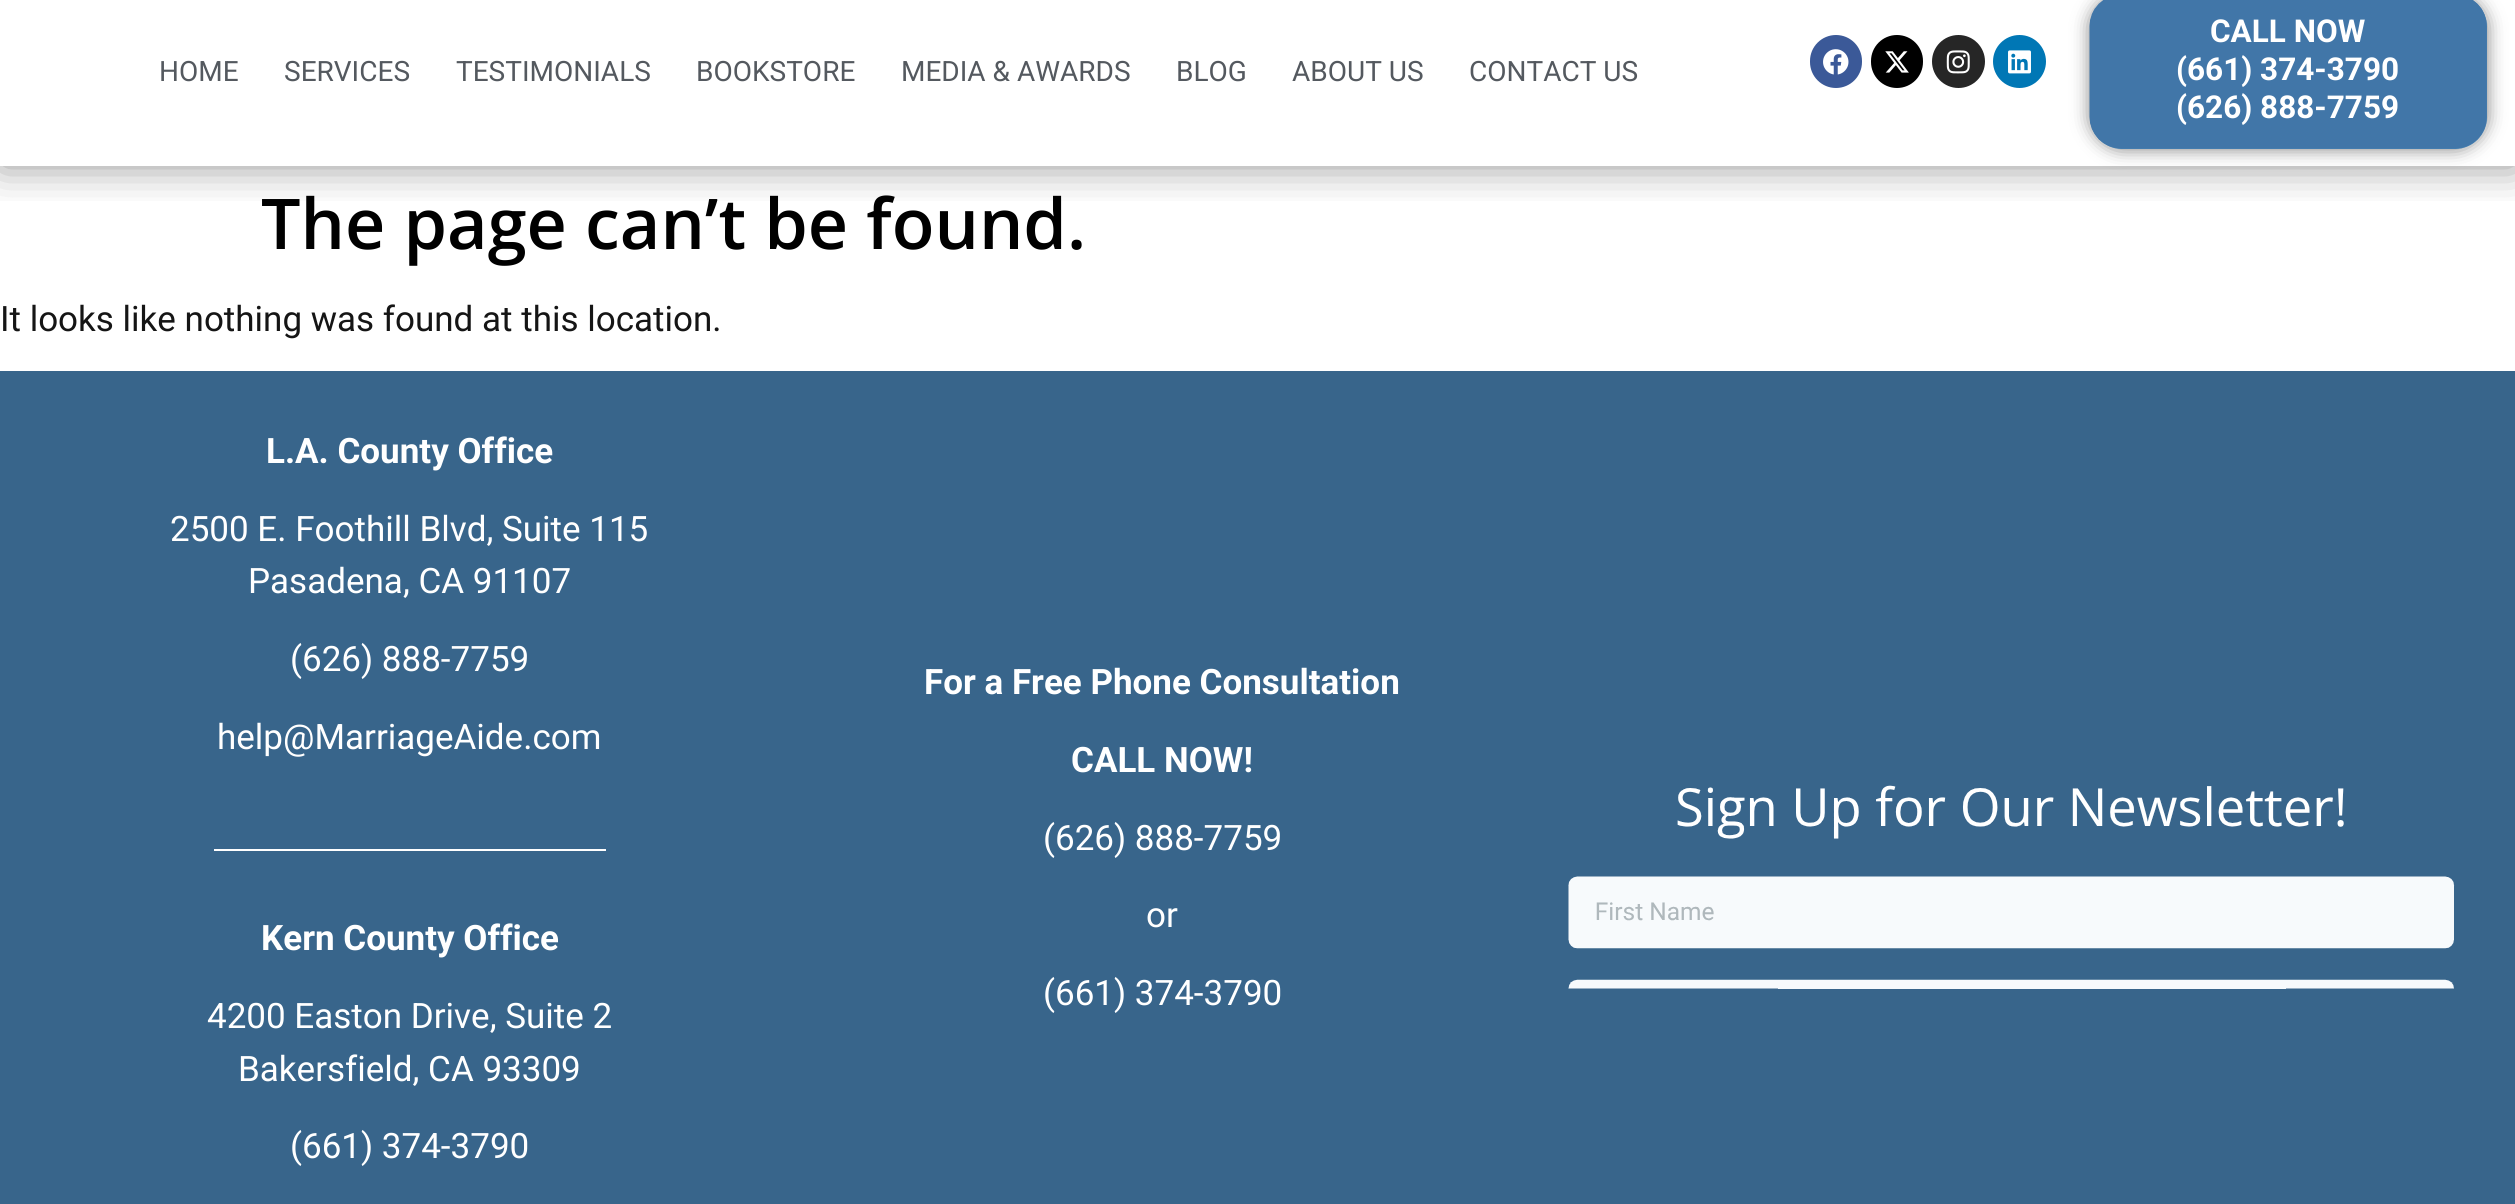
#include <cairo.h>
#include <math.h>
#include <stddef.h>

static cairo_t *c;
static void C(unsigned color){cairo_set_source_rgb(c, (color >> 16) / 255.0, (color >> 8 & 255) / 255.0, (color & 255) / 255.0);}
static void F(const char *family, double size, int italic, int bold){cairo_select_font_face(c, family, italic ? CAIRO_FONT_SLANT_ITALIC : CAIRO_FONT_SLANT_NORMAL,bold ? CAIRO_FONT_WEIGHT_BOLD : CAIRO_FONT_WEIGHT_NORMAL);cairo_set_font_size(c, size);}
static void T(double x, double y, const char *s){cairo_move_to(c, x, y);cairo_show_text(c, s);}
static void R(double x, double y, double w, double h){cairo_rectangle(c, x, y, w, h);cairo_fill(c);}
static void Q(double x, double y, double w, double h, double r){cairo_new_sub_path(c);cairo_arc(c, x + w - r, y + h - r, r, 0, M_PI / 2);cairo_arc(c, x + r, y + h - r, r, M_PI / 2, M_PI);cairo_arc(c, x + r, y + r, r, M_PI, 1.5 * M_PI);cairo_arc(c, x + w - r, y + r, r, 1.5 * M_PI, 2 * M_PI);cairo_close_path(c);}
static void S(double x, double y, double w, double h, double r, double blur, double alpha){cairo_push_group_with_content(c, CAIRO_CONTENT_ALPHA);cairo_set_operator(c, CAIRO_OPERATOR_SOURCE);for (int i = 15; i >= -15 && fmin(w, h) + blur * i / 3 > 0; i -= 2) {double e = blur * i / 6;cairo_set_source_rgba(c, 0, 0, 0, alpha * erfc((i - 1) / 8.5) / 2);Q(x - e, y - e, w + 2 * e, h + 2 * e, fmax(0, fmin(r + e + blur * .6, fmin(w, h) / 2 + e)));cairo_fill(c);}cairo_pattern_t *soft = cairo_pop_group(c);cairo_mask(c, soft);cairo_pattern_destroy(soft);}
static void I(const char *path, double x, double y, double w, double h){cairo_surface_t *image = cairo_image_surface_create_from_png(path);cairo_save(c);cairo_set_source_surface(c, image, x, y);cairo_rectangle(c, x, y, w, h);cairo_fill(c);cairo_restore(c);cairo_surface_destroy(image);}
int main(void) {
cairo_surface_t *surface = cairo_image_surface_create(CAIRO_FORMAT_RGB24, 2515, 1204);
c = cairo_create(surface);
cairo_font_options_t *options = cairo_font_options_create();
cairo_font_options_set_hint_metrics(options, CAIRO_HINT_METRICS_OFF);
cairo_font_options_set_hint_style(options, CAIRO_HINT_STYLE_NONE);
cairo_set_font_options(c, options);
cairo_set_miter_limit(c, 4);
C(0xffffff);
cairo_paint(c);
cairo_save(c);
cairo_rectangle(c,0,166,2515,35);
cairo_clip(c);
C(0x000000);
S(0,-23,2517,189,0,21,.43);
cairo_restore(c);
F("Roboto",28,0,0);
C(0x54595f);
T(159,81,"HOME");
T(284,81,"SERVICES");
T(456,81,"TESTIMONIALS");
T(696,81,"BOOKSTORE");
T(901,81,"MEDIA & AWARDS");
T(1176,81,"BLOG");
T(1292,81,"ABOUT US");
T(1469,81,"CONTACT US");
C(0x3b5998);
Q(1810,35,52,53,26);
cairo_fill(c);
I("1.png",1823,49,26,26);
C(0x000000);
Q(1871,35,52,53,26);
cairo_fill(c);
I("2.png",1885,51,24,22);
C(0x262626);
cairo_arc(c,1958.5,61.5,26.5,0,2 * M_PI);
cairo_fill(c);
I("3.png",1946,50,24,24);
C(0x0077b5);
cairo_arc(c,2019.5,61.5,26.5,0,2 * M_PI);
cairo_fill(c);
I("4.png",2008,50,23,24);
C(0x000000);
S(2090,-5,397,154,32,9,.5);
C(0x4682b4);
Q(2090,-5,397,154,32);
cairo_fill(c);
I("5.png",2089,0,398,149);
F("Roboto",31.5,0,1);
C(0xffffff);
T(2210,42,"CALL NOW");
T(2176,80,"(661) 374-3790");
T(2176,118,"(626) 888-7759");
F("Open Sans SemiBold",70,0,0);
C(0x000000);
T(261,249,"The page can’t be found.");
F("Roboto",35,0,0);
C(0x151515);
T(0,331,"It looks like nothing was found at this location.");
C(0x38658b);
R(0,371,2515,833);
F("Roboto",35,0,1);
C(0xffffff);
T(266,463,"L.A. County Office");
F("Roboto",35,0,0);
T(170,541,"2500 E. Foothill Blvd, Suite 115");
T(248,593,"Pasadena, CA 91107");
T(290,671,"(626) 888-7759");
T(217,749,"help@MarriageAide.com");
R(214,849,392,2);
F("Roboto",35,0,1);
T(261,950,"Kern County Office");
F("Roboto",35,0,0);
T(207,1028,"4200 Easton Drive, Suite 2");
T(238,1081,"Bakersfield, CA 93309");
T(290,1158,"(661) 374-3790");
F("Roboto",35,0,1);
T(924,694,"For a Free Phone Consultation");
T(1071,772,"CALL NOW!");
F("Roboto",35,0,0);
T(1043,850,"(626) 888-7759");
T(1146,927,"or");
T(1043,1005,"(661) 374-3790");
I("6.png",1568,785,887,204);
cairo_surface_write_to_png(surface, "o.png");
cairo_font_options_destroy(options);
cairo_destroy(c);
cairo_surface_destroy(surface);
return 0;
}
